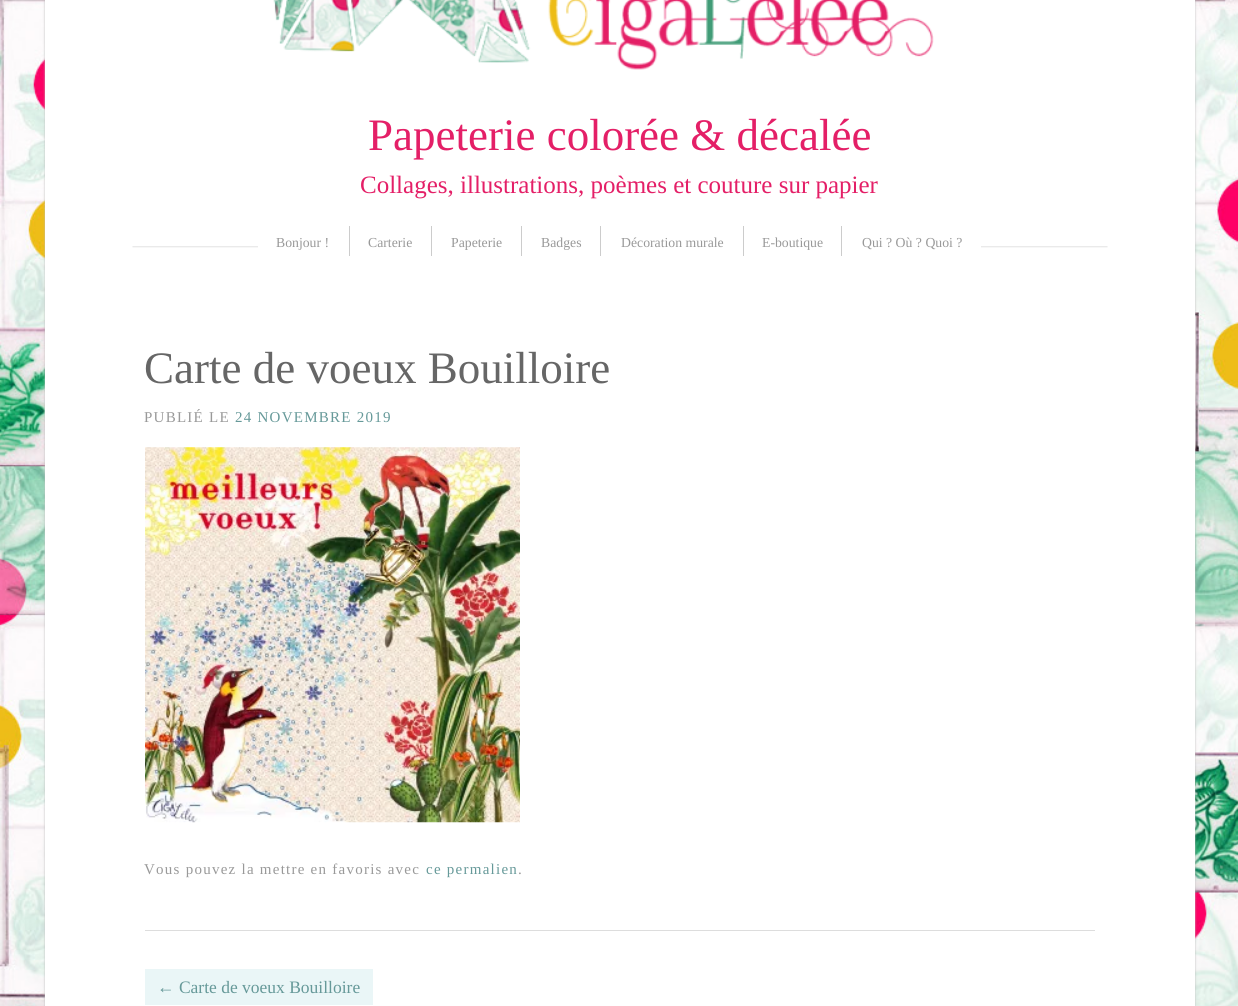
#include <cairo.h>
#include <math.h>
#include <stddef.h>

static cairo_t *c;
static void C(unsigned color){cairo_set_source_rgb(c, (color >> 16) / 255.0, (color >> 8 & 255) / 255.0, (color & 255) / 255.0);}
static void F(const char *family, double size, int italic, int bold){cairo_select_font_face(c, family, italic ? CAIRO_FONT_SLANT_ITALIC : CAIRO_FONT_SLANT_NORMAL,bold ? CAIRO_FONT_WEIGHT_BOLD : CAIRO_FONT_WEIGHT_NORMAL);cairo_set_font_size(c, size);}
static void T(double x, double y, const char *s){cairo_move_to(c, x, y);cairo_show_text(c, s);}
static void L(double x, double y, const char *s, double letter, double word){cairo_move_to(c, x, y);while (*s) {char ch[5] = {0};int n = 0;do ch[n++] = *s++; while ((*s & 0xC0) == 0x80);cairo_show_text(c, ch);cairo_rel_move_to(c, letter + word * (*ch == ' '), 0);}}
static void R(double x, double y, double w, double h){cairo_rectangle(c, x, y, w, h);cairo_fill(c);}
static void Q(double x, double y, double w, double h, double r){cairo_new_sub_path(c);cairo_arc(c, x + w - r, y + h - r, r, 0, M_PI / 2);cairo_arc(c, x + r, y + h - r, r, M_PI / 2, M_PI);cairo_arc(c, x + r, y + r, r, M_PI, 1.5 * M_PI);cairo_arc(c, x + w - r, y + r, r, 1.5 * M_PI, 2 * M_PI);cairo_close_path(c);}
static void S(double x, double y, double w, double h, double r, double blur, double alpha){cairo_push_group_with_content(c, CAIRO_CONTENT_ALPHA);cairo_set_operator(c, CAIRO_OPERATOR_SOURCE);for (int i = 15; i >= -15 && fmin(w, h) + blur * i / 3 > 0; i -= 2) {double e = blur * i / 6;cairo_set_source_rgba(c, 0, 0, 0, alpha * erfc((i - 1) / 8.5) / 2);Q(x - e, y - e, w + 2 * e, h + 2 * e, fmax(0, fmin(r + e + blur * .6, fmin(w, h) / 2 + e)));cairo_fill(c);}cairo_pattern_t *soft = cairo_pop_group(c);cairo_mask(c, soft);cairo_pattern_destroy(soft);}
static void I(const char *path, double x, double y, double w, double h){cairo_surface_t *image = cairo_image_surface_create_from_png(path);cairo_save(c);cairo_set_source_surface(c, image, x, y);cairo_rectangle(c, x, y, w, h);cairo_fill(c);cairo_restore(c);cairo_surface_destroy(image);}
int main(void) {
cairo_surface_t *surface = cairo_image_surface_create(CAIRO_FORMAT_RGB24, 1238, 1006);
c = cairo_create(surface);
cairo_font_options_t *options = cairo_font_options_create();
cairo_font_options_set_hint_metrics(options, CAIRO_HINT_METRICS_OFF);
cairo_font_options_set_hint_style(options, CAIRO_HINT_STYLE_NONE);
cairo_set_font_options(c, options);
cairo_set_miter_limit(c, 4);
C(0xffffff);
cairo_paint(c);
I("1.png",0,0,1238,1006);
C(0xbbbbbb);
S(45,-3,1150,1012,0,1,1);
C(0xffffff);
R(45,0,1150,1006);
I("2.png",273,0,661,70);
F("Liberation Serif",45,0,0);
C(0xe41f67);
T(368,150,"Papeterie colorée & décalée");
F("Liberation Serif",25,0,0);
T(360,193,"Collages, illustrations, poèmes et couture sur papier");
I("3.png",132,246,976,2);
C(0xffffff);
R(258,246,723,2);
F("Liberation Serif",13.75,0,0);
C(0x999999);
T(276,247,"Bonjour !");
C(0xcccccc);
R(349,226,1,30);
C(0x999999);
T(368,247,"Carterie");
C(0xcccccc);
R(431,226,1,30);
C(0x999999);
T(451,247,"Papeterie");
C(0xcccccc);
R(521,226,1,30);
C(0x999999);
T(541,247,"Badges");
C(0xcccccc);
R(600,226,1,30);
C(0x999999);
T(621,247,"Décoration murale");
C(0xcccccc);
R(743,226,1,30);
C(0x999999);
T(762,247,"E-boutique");
C(0xcccccc);
R(841,226,1,30);
C(0x999999);
T(862,247,"Qui ? Où ? Quoi ?");
C(0xdddddd);
R(145,930,950,1);
F("Liberation Serif",45,0,0);
C(0x666666);
T(144,383,"Carte de voeux Bouilloire");
F("Liberation Serif",15,0,0);
C(0x999999);
L(144,422,"PUBLIÉ LE",1.25,0);
C(0x669999);
L(235,422,"24 NOVEMBRE 2019",1.25,0);
I("4.png",145,447,375,376);
C(0x999999);
L(144,874,"Vous pouvez la mettre en favoris avec",1.25,0);
C(0x669999);
L(426,874,"ce permalien",1.25,0);
C(0x999999);
L(518,874,".",1.25,0);
C(0xeaf6f7);
R(145,969,228,36);
F("Liberation Serif",17.5,0,0);
C(0x669999);
T(157,993,"← Carte de voeux Bouilloire");
cairo_surface_write_to_png(surface, "o.png");
cairo_font_options_destroy(options);
cairo_destroy(c);
cairo_surface_destroy(surface);
return 0;
}
